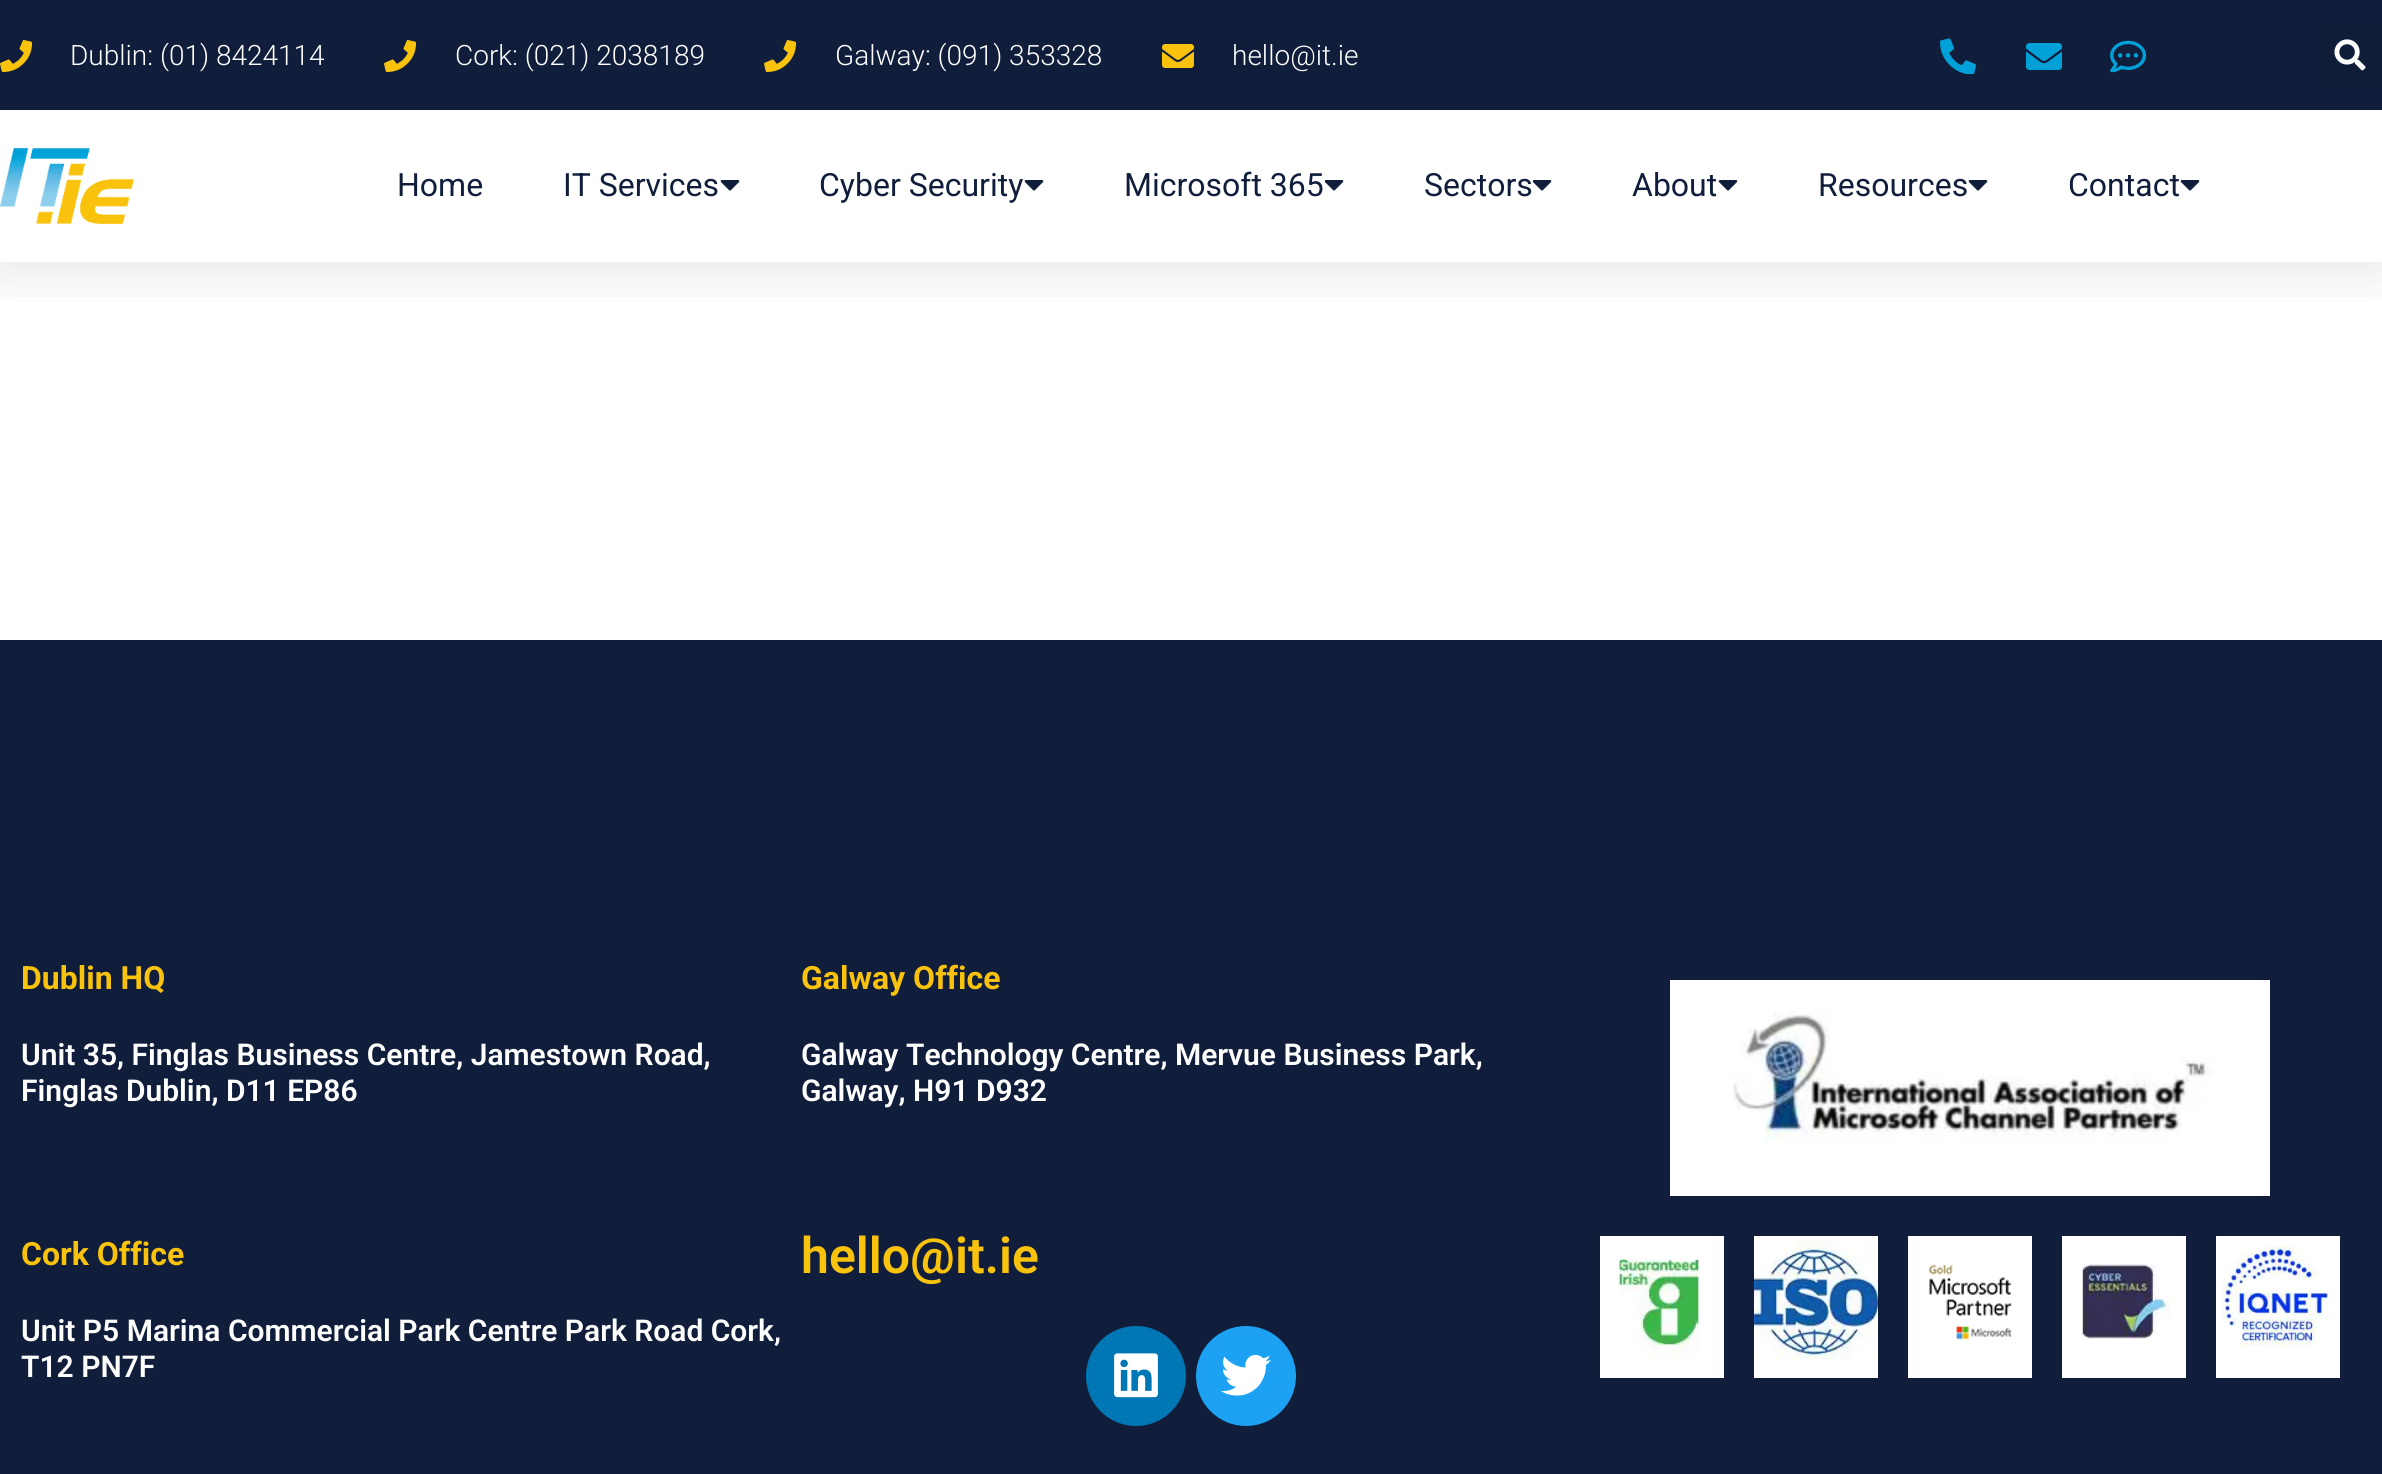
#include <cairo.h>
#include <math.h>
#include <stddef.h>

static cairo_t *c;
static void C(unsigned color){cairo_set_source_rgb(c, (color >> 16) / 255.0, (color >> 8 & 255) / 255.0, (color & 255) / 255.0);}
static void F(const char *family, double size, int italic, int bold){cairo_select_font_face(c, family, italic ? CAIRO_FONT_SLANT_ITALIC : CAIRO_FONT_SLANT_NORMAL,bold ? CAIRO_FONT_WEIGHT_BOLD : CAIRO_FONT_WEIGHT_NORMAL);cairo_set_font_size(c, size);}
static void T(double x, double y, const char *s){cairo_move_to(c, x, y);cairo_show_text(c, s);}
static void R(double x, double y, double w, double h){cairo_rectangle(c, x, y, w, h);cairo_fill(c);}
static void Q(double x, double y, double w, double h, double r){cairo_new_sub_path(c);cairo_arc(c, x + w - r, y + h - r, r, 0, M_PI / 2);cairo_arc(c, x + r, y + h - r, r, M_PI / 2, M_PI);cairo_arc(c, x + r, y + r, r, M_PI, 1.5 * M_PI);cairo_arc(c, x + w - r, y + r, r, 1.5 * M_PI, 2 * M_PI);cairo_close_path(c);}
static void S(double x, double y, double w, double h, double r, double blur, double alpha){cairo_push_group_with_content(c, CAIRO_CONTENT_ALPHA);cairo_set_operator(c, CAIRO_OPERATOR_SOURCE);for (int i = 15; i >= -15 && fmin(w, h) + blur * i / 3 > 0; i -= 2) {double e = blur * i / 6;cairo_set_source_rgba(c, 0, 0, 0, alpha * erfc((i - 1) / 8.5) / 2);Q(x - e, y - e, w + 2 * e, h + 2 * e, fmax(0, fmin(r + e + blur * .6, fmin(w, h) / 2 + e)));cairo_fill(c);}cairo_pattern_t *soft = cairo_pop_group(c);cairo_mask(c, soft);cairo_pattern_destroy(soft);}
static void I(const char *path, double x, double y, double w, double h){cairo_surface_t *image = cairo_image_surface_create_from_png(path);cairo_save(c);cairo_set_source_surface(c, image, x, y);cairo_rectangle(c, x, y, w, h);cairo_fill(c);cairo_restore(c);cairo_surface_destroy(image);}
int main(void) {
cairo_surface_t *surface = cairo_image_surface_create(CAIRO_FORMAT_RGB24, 2382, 1474);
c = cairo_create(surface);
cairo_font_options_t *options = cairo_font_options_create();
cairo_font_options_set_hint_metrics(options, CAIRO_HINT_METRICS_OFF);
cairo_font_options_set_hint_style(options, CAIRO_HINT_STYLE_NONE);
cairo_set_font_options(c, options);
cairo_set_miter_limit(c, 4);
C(0xffffff);
cairo_paint(c);
cairo_save(c);
cairo_rectangle(c,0,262,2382,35);
cairo_clip(c);
C(0x000000);
S(0,10,2382,262,0,30,.1);
cairo_restore(c);
C(0x101e3b);
R(0,0,2382,110);
I("1.png",0,40,33,32);
F("Roboto Light",28,0,0);
C(0xffffff);
T(70,65,"Dublin: (01) 8424114");
I("1.png",384,40,33,32);
T(455,65,"Cork: (021) 2038189");
I("1.png",764,40,33,32);
T(835,65,"Galway: (091) 353328");
I("2.png",1162,44,32,24);
T(1232,65,"hello@it.ie");
I("3.png",1940,38,36,36);
I("4.png",2026,43,36,27);
I("5.png",2110,40,37,33);
C(0x0f1d38);
Q(2320,24,62,62,6);
cairo_fill(c);
I("6.png",2334,39,32,32);
I("7.png",0,148,134,76);
F("Roboto",32,0,0);
C(0x101e3b);
T(397,196,"Home");
T(563,196,"IT Services");
I("8.png",720,180,20,11);
T(819,196,"Cyber Security");
I("8.png",1024,180,20,11);
T(1124,196,"Microsoft 365");
I("8.png",1324,180,20,11);
T(1424,196,"Sectors");
I("8.png",1532,180,20,11);
T(1632,196,"About");
I("8.png",1718,180,20,11);
T(1818,196,"Resources");
I("8.png",1968,180,20,11);
T(2068,196,"Contact");
I("8.png",2180,180,20,11);
R(0,640,2382,834);
F("Roboto",32,0,1);
C(0xf9c20d);
T(21,989,"Dublin HQ");
F("Roboto SemiBold",30,0,0);
C(0xffffff);
T(21,1065,"Unit 35, Finglas Business Centre, Jamestown Road,");
T(21,1101,"Finglas Dublin, D11 EP86");
F("Roboto",32,0,1);
C(0xf9c20d);
T(21,1265,"Cork Office");
F("Roboto SemiBold",30,0,0);
C(0xffffff);
T(21,1341,"Unit P5 Marina Commercial Park Centre Park Road Cork,");
T(21,1377,"T12 PN7F");
F("Roboto",32,0,1);
C(0xf9c20d);
T(801,989,"Galway Office");
F("Roboto SemiBold",30,0,0);
C(0xffffff);
T(801,1065,"Galway Technology Centre, Mervue Business Park,");
T(801,1101,"Galway, H91 D932");
F("Roboto SemiBold",50,0,0);
C(0xf9c20d);
T(801,1273,"hello@it.ie");
C(0x0077b5);
cairo_new_path(c);
cairo_arc(c,1136,1376,50,0,2 * M_PI);
cairo_fill(c);
I("9.png",1114,1353,44,45);
C(0x1da1f2);
cairo_arc(c,1246,1376,50,0,2 * M_PI);
cairo_fill(c);
I("10.png",1221,1354,50,42);
I("11.png",1670,980,600,216);
C(0xffffff);
R(1600,1236,124,142);
I("12.png",1618,1257,82,102);
R(1754,1236,124,142);
I("13.png",1754,1240,124,120);
R(1908,1236,124,142);
I("14.png",1929,1264,84,76);
R(2062,1236,124,142);
I("15.png",2081,1264,90,76);
R(2216,1236,124,142);
I("16.png",2221,1246,108,101);
cairo_surface_write_to_png(surface, "o.png");
cairo_font_options_destroy(options);
cairo_destroy(c);
cairo_surface_destroy(surface);
return 0;
}
